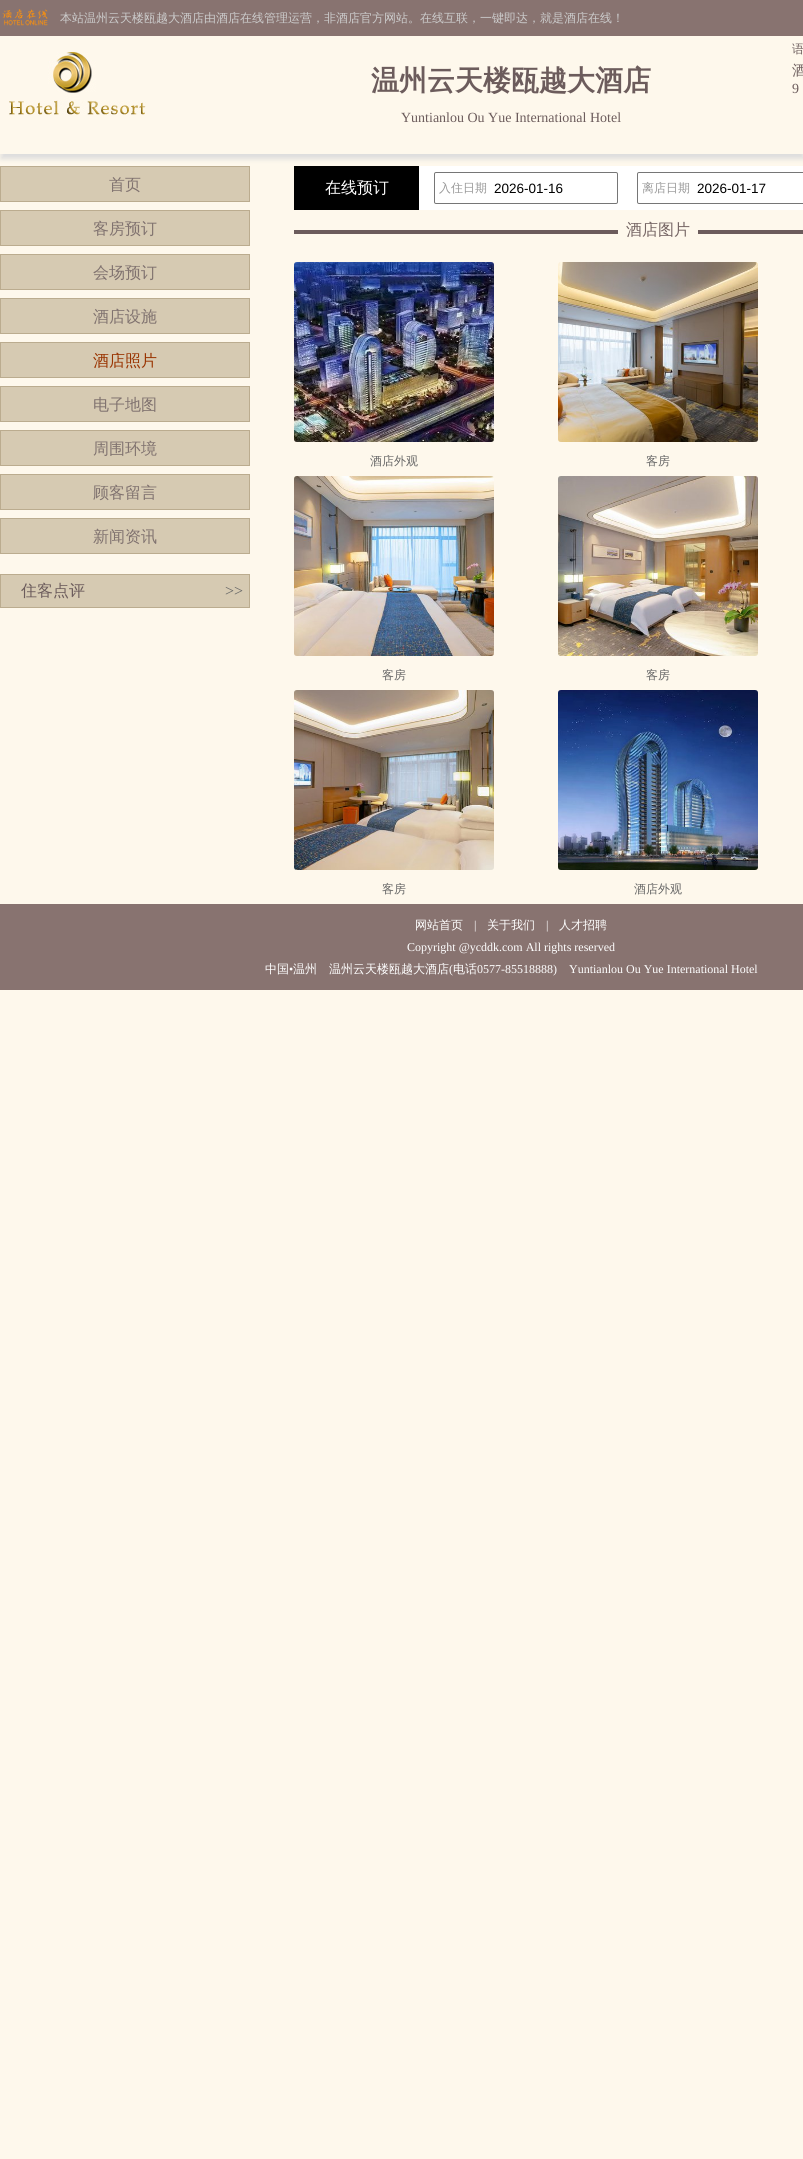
#include <cairo.h>
#include <math.h>
#include <stddef.h>

static cairo_t *c;
static void C(unsigned color){cairo_set_source_rgb(c, (color >> 16) / 255.0, (color >> 8 & 255) / 255.0, (color & 255) / 255.0);}
static void F(const char *family, double size, int italic, int bold){cairo_select_font_face(c, family, italic ? CAIRO_FONT_SLANT_ITALIC : CAIRO_FONT_SLANT_NORMAL,bold ? CAIRO_FONT_WEIGHT_BOLD : CAIRO_FONT_WEIGHT_NORMAL);cairo_set_font_size(c, size);}
static void T(double x, double y, const char *s){cairo_move_to(c, x, y);cairo_show_text(c, s);}
static void R(double x, double y, double w, double h){cairo_rectangle(c, x, y, w, h);cairo_fill(c);}
static void Q(double x, double y, double w, double h, double r){cairo_new_sub_path(c);cairo_arc(c, x + w - r, y + h - r, r, 0, M_PI / 2);cairo_arc(c, x + r, y + h - r, r, M_PI / 2, M_PI);cairo_arc(c, x + r, y + r, r, M_PI, 1.5 * M_PI);cairo_arc(c, x + w - r, y + r, r, 1.5 * M_PI, 2 * M_PI);cairo_close_path(c);}
static void S(double x, double y, double w, double h, double r, double blur, double alpha){cairo_push_group_with_content(c, CAIRO_CONTENT_ALPHA);cairo_set_operator(c, CAIRO_OPERATOR_SOURCE);for (int i = 15; i >= -15 && fmin(w, h) + blur * i / 3 > 0; i -= 2) {double e = blur * i / 6;cairo_set_source_rgba(c, 0, 0, 0, alpha * erfc((i - 1) / 8.5) / 2);Q(x - e, y - e, w + 2 * e, h + 2 * e, fmax(0, fmin(r + e + blur * .6, fmin(w, h) / 2 + e)));cairo_fill(c);}cairo_pattern_t *soft = cairo_pop_group(c);cairo_mask(c, soft);cairo_pattern_destroy(soft);}
static void I(const char *path, double x, double y, double w, double h){cairo_surface_t *image = cairo_image_surface_create_from_png(path);cairo_save(c);cairo_set_source_surface(c, image, x, y);cairo_rectangle(c, x, y, w, h);cairo_fill(c);cairo_restore(c);cairo_surface_destroy(image);}
int main(void) {
cairo_surface_t *surface = cairo_image_surface_create(CAIRO_FORMAT_RGB24, 803, 2159);
c = cairo_create(surface);
cairo_font_options_t *options = cairo_font_options_create();
cairo_font_options_set_hint_metrics(options, CAIRO_HINT_METRICS_OFF);
cairo_font_options_set_hint_style(options, CAIRO_HINT_STYLE_NONE);
cairo_set_font_options(c, options);
cairo_set_miter_limit(c, 4);
C(0xfef8ec);
cairo_paint(c);
C(0x887370);
R(0,0,803,36);
I("1.png",2,9,46,17);
F("WenQuanYi Zen Hei Medium",12,0,0);
C(0xcccccc);
T(60,22,"本站温州云天楼瓯越大酒店由酒店在线管理运营，非酒店官方网站。在线互联，一键即达，就是酒店在线！");
cairo_save(c);
cairo_rectangle(c,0,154,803,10);
cairo_clip(c);
C(0xdddddd);
S(1,41,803,118,0,2.5,1);
cairo_restore(c);
C(0x6c5c5c);
T(792,53,"语");
I("2.png",9,52,137,63);
F("WenQuanYi Zen Hei",28,0,1);
T(371,90,"温州云天楼瓯越大酒店");
F("Liberation Serif",14,0,0);
T(401,122,"Yuntianlou Ou Yue International Hotel");
F("WenQuanYi Zen Hei Medium",14,0,0);
T(792,75,"酒");
F("Liberation Serif",14,0,0);
T(792,93,"9");
C(0xd6cab2);
cairo_rectangle(c,.5,166.5,249,35);
cairo_fill_preserve(c);
C(0xbbac8f);
cairo_set_line_width(c,1);
cairo_stroke(c);
F("WenQuanYi Zen Hei Medium",16,0,0);
C(0x80726f);
T(109,190,"首页");
C(0xd6cab2);
cairo_rectangle(c,.5,210.5,249,35);
cairo_fill_preserve(c);
C(0xbbac8f);
cairo_stroke(c);
C(0x80726f);
T(93,234,"客房预订");
C(0xd6cab2);
cairo_rectangle(c,.5,254.5,249,35);
cairo_fill_preserve(c);
C(0xbbac8f);
cairo_stroke(c);
C(0x80726f);
T(93,278,"会场预订");
C(0xd6cab2);
cairo_rectangle(c,.5,298.5,249,35);
cairo_fill_preserve(c);
C(0xbbac8f);
cairo_stroke(c);
C(0x80726f);
T(93,322,"酒店设施");
C(0xd6cab2);
cairo_rectangle(c,.5,342.5,249,35);
cairo_fill_preserve(c);
C(0xbbac8f);
cairo_stroke(c);
C(0x993300);
T(93,366,"酒店照片");
C(0xd6cab2);
cairo_rectangle(c,.5,386.5,249,35);
cairo_fill_preserve(c);
C(0xbbac8f);
cairo_stroke(c);
C(0x80726f);
T(93,410,"电子地图");
C(0xd6cab2);
cairo_rectangle(c,.5,430.5,249,35);
cairo_fill_preserve(c);
C(0xbbac8f);
cairo_stroke(c);
C(0x80726f);
T(93,454,"周围环境");
C(0xd6cab2);
cairo_rectangle(c,.5,474.5,249,35);
cairo_fill_preserve(c);
C(0xbbac8f);
cairo_stroke(c);
C(0x80726f);
T(93,498,"顾客留言");
C(0xd6cab2);
cairo_rectangle(c,.5,518.5,249,35);
cairo_fill_preserve(c);
C(0xbbac8f);
cairo_stroke(c);
C(0x80726f);
T(93,542,"新闻资讯");
C(0xd6cab2);
cairo_rectangle(c,.5,574.5,249,33);
cairo_fill_preserve(c);
C(0xbbac8f);
cairo_stroke(c);
C(0x6c5c5c);
T(21,596,"住客点评");
F("Liberation Serif",16,0,0);
C(0x666666);
T(225,596,">>");
C(0xffffff);
R(419,166,384,44);
C(0x000000);
R(294,166,125,44);
F("WenQuanYi Zen Hei Medium",16,0,0);
C(0xffffff);
T(325,193,"在线预订");
Q(434.5,172.5,183,31,1.5);
C(0x767676);
cairo_stroke(c);
F("WenQuanYi Zen Hei Medium",12,0,0);
C(0x999999);
T(439,192,"入住日期");
F("Liberation Sans",13.5,0,0);
C(0x000000);
T(494,193,"2026-01-16");
Q(637.5,172.5,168,31,1.5);
C(0x767676);
cairo_stroke(c);
F("WenQuanYi Zen Hei Medium",12,0,0);
C(0x999999);
T(642,192,"离店日期");
F("Liberation Sans",13.5,0,0);
C(0x000000);
T(697,193,"2026-01-17");
C(0x6c5c5c);
R(294,230,509,4);
C(0xfef8ec);
R(618,230,80,4);
F("WenQuanYi Zen Hei Medium",16,0,0);
C(0x756564);
T(626,235,"酒店图片");
I("3.png",294,262,200,180);
F("WenQuanYi Zen Hei Medium",12,0,0);
C(0x666666);
T(370,465,"酒店外观");
I("4.png",558,262,200,180);
T(646,465,"客房");
I("5.png",294,476,200,180);
T(382,679,"客房");
I("6.png",558,476,200,180);
T(646,679,"客房");
I("7.png",294,690,200,180);
T(382,893,"客房");
I("8.png",558,690,200,180);
T(634,893,"酒店外观");
C(0x887370);
R(0,904,803,86);
C(0xffffff);
T(415,929,"网站首页");
F("Liberation Serif",12,0,0);
T(474,929,"|");
F("WenQuanYi Zen Hei Medium",12,0,0);
T(487,929,"关于我们");
F("Liberation Serif",12,0,0);
T(546,929,"|");
F("WenQuanYi Zen Hei Medium",12,0,0);
T(559,929,"人才招聘");
F("Liberation Serif",12,0,0);
T(407,951,"Copyright @ycddk.com All rights reserved");
F("WenQuanYi Zen Hei Medium",12,0,0);
T(265,973,"中国");
F("Liberation Serif",12,0,0);
T(289,973,"•");
F("WenQuanYi Zen Hei Medium",12,0,0);
T(293,973,"温州　温州云天楼瓯越大酒店");
F("Liberation Serif",12,0,0);
T(449,973,"(");
F("WenQuanYi Zen Hei Medium",12,0,0);
T(453,973,"电话");
F("Liberation Serif",12,0,0);
T(477,973,"0577-85518888)");
T(569,973,"Yuntianlou Ou Yue International Hotel");
cairo_surface_write_to_png(surface, "o.png");
cairo_font_options_destroy(options);
cairo_destroy(c);
cairo_surface_destroy(surface);
return 0;
}
